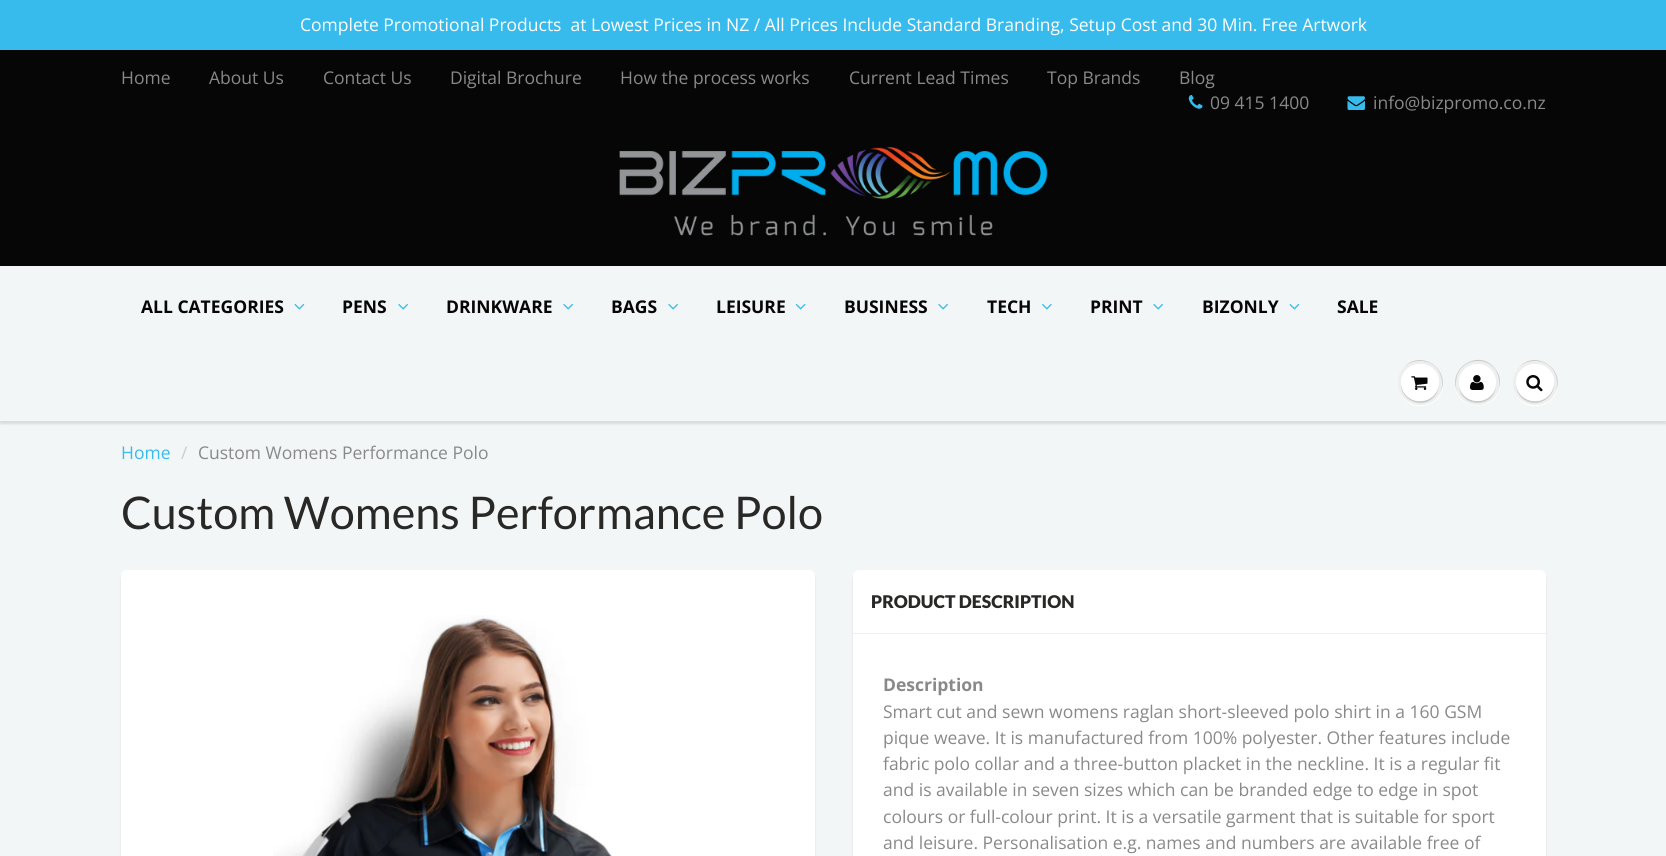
#include <cairo.h>
#include <math.h>
#include <stddef.h>

static cairo_t *c;
static void C(unsigned color){cairo_set_source_rgb(c, (color >> 16) / 255.0, (color >> 8 & 255) / 255.0, (color & 255) / 255.0);}
static void F(const char *family, double size, int italic, int bold){cairo_select_font_face(c, family, italic ? CAIRO_FONT_SLANT_ITALIC : CAIRO_FONT_SLANT_NORMAL,bold ? CAIRO_FONT_WEIGHT_BOLD : CAIRO_FONT_WEIGHT_NORMAL);cairo_set_font_size(c, size);}
static void T(double x, double y, const char *s){cairo_move_to(c, x, y);cairo_show_text(c, s);}
static void R(double x, double y, double w, double h){cairo_rectangle(c, x, y, w, h);cairo_fill(c);}
static void Q(double x, double y, double w, double h, double r){cairo_new_sub_path(c);cairo_arc(c, x + w - r, y + h - r, r, 0, M_PI / 2);cairo_arc(c, x + r, y + h - r, r, M_PI / 2, M_PI);cairo_arc(c, x + r, y + r, r, M_PI, 1.5 * M_PI);cairo_arc(c, x + w - r, y + r, r, 1.5 * M_PI, 2 * M_PI);cairo_close_path(c);}
static void S(double x, double y, double w, double h, double r, double blur, double alpha){cairo_push_group_with_content(c, CAIRO_CONTENT_ALPHA);cairo_set_operator(c, CAIRO_OPERATOR_SOURCE);for (int i = 15; i >= -15 && fmin(w, h) + blur * i / 3 > 0; i -= 2) {double e = blur * i / 6;cairo_set_source_rgba(c, 0, 0, 0, alpha * erfc((i - 1) / 8.5) / 2);Q(x - e, y - e, w + 2 * e, h + 2 * e, fmax(0, fmin(r + e + blur * .6, fmin(w, h) / 2 + e)));cairo_fill(c);}cairo_pattern_t *soft = cairo_pop_group(c);cairo_mask(c, soft);cairo_pattern_destroy(soft);}
static void I(const char *path, double x, double y, double w, double h){cairo_surface_t *image = cairo_image_surface_create_from_png(path);cairo_save(c);cairo_set_source_surface(c, image, x, y);cairo_rectangle(c, x, y, w, h);cairo_fill(c);cairo_restore(c);cairo_surface_destroy(image);}
int main(void) {
cairo_surface_t *surface = cairo_image_surface_create(CAIRO_FORMAT_RGB24, 1666, 856);
c = cairo_create(surface);
cairo_font_options_t *options = cairo_font_options_create();
cairo_font_options_set_hint_metrics(options, CAIRO_HINT_METRICS_OFF);
cairo_font_options_set_hint_style(options, CAIRO_HINT_STYLE_NONE);
cairo_set_font_options(c, options);
cairo_set_miter_limit(c, 4);
C(0x37bbec);
cairo_paint(c);
F("Open Sans",17.5,0,0);
C(0xffffff);
T(300,31,"Complete Promotional Products  at Lowest Prices in NZ / All Prices Include Standard Branding, Setup Cost and 30 Min. Free Artwork");
C(0x060606);
R(0,50,1666,80);
C(0x898989);
T(121,84,"Home");
T(209,84,"About Us");
T(323,84,"Contact Us");
T(450,84,"Digital Brochure");
T(620,84,"How the process works");
T(849,84,"Current Lead Times");
T(1047,84,"Top Brands");
T(1179,84,"Blog");
I("1.png",1188,95,15,14);
T(1210,109,"09 415 1400");
I("2.png",1347,96,18,14);
T(1373,109,"info@bizpromo.co.nz");
C(0x060606);
R(0,131,1666,134);
C(0x080707);
R(0,130,1666,1);
I("3.png",619,147,429,89);
C(0xf3f6f6);
R(0,421,1666,435);
C(0x0b191c);
S(0,268,1666,156,0,1,.12);
C(0xf3f6f6);
R(0,266,1666,155);
C(0x080707);
R(0,265,1666,1);
F("Open Sans",17.5,0,1);
C(0x060606);
T(141,313,"ALL CATEGORIES");
I("4.png",294,303,11,7);
T(342,313,"PENS");
I("5.png",398,303,10,7);
T(446,313,"DRINKWARE");
I("5.png",563,303,10,7);
T(611,313,"BAGS");
I("5.png",668,303,10,7);
T(716,313,"LEISURE");
I("6.png",795,303,11,7);
T(844,313,"BUSINESS");
I("5.png",938,303,10,7);
T(987,313,"TECH");
I("7.png",1042,303,10,7);
T(1090,313,"PRINT");
I("5.png",1153,303,10,7);
T(1202,313,"BIZONLY");
I("4.png",1289,303,11,7);
T(1337,313,"SALE");
C(0xffffff);
cairo_new_path(c);
cairo_move_to(c,1400,393);
cairo_curve_to(c,1413,421,1455,400,1440,373);
cairo_curve_to(c,1453,399,1414,419,1400,393);
cairo_close_path(c);
cairo_fill(c);
C(0xedefef);
cairo_arc(c,1420.5,382.5,22.5,0,2 * M_PI);
cairo_fill(c);
C(0xc9cbcb);
cairo_new_path(c);
cairo_move_to(c,1420,361);
cairo_curve_to(c,1438,361,1445,378,1441,391);
cairo_curve_to(c,1450,369,1422,350,1405,366);
cairo_curve_to(c,1409,363,1414,361,1420,361);
cairo_close_path(c);
cairo_fill(c);
cairo_new_path(c);
cairo_move_to(c,1401.5,380);
cairo_curve_to(c,1397,400,1424,412,1436,394.5);
cairo_curve_to(c,1438.5,390.5,1439.5,385,1438.5,380);
cairo_curve_to(c,1441,399.5,1415.5,409.5,1404.5,393);
cairo_curve_to(c,1402,389,1401,384.5,1401.5,380);
cairo_close_path(c);
cairo_fill(c);
C(0xffffff);
Q(1401,364,38,37,18.5);
cairo_fill(c);
cairo_new_path(c);
cairo_move_to(c,1420,365);
cairo_curve_to(c,1434,365,1440,377,1438,387);
cairo_curve_to(c,1440,382,1439,376,1436,372);
cairo_curve_to(c,1424,355,1397,367,1402,387);
cairo_curve_to(c,1400,377,1406,365,1420,365);
cairo_close_path(c);
cairo_fill(c);
I("8.png",1411,376,17,14);
cairo_new_path(c);
cairo_move_to(c,1455,383);
cairo_curve_to(c,1454,413,1501,413,1500,383);
cairo_curve_to(c,1499,412,1456,412,1455,383);
cairo_close_path(c);
cairo_fill(c);
C(0xedefef);
cairo_arc(c,1477.5,382.5,22.5,0,2 * M_PI);
cairo_fill(c);
C(0xc9cbcb);
cairo_new_path(c);
cairo_move_to(c,1478,361);
cairo_curve_to(c,1494,361,1501,375,1499,388);
cairo_curve_to(c,1501,382,1500,375,1496,370);
cairo_curve_to(c,1481,347,1447,367,1457,391);
cairo_curve_to(c,1453,378,1460,361,1478,361);
cairo_close_path(c);
cairo_fill(c);
cairo_new_path(c);
cairo_move_to(c,1459,386);
cairo_curve_to(c,1460.5,408.5,1494.5,408.5,1496,386);
cairo_curve_to(c,1492.5,406,1462.5,406,1459,386);
cairo_close_path(c);
cairo_fill(c);
C(0xffffff);
cairo_arc(c,1477.5,382.5,18.5,0,2 * M_PI);
cairo_fill(c);
cairo_new_path(c);
cairo_move_to(c,1478,365);
cairo_curve_to(c,1490,365,1496,374,1496,383);
cairo_curve_to(c,1496,379,1495,375.5,1493,372);
cairo_curve_to(c,1481,355,1454.5,367.5,1459.5,387);
cairo_curve_to(c,1458,376.5,1464,365,1478,365);
cairo_close_path(c);
cairo_fill(c);
I("9.png",1470,375,14,15);
cairo_new_path(c);
cairo_move_to(c,1515,393);
cairo_curve_to(c,1528,421,1570,400,1555,373);
cairo_curve_to(c,1568,399,1529,419,1515,393);
cairo_close_path(c);
cairo_fill(c);
C(0xedefef);
cairo_arc(c,1535.5,382.5,22.5,0,2 * M_PI);
cairo_fill(c);
C(0xc9cbcb);
cairo_new_path(c);
cairo_move_to(c,1535,361);
cairo_curve_to(c,1553,361,1560,378,1556,391);
cairo_curve_to(c,1565,369,1537,350,1520,366);
cairo_curve_to(c,1524,363,1529,361,1535,361);
cairo_close_path(c);
cairo_fill(c);
cairo_new_path(c);
cairo_move_to(c,1516.5,380);
cairo_curve_to(c,1515.5,385,1516.5,390.5,1519,394.5);
cairo_curve_to(c,1531,412,1558,400,1553.5,380);
cairo_curve_to(c,1554,384.5,1553,389,1550.5,393);
cairo_curve_to(c,1539.5,409.5,1514,399.5,1516.5,380);
cairo_close_path(c);
cairo_fill(c);
C(0xffffff);
Q(1516,364,38,37,18.5);
cairo_fill(c);
cairo_new_path(c);
cairo_move_to(c,1535,365);
cairo_curve_to(c,1549,365,1555,377,1553,387);
cairo_curve_to(c,1555,382,1554,376,1551,372);
cairo_curve_to(c,1539,355,1512,367,1517,387);
cairo_curve_to(c,1515,377,1521,365,1535,365);
cairo_close_path(c);
cairo_fill(c);
I("10.png",1526,375,17,17);
F("Open Sans",17.5,0,0);
C(0x37bbec);
T(121,459,"Home");
C(0xcccccc);
T(181,459,"/");
C(0x898989);
T(198,459,"Custom Womens Performance Polo");
F("Lato",45,0,0);
C(0x282827);
T(121,529,"Custom Womens Performance Polo");
C(0x0b191c);
S(121,573,694,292,6,1,.1);
C(0xffffff);
Q(121,570,694,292,6);
cairo_fill(c);
I("11.png",273,615,339,241);
C(0x0b191c);
S(853,573,693,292,6,1,.1);
C(0xffffff);
Q(853,570,693,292,6);
cairo_fill(c);
C(0xefefef);
R(853,633,693,1);
F("Lato Black",17.5,0,0);
C(0x282827);
T(871,608,"PRODUCT DESCRIPTION");
F("Open Sans",17.5,0,1);
C(0x898989);
T(883,691,"Description");
F("Open Sans",17.5,0,0);
T(883,718,"Smart cut and sewn womens raglan short-sleeved polo shirt in a 160 GSM");
T(883,744,"pique weave. It is manufactured from 100% polyester. Other features include");
T(883,770,"fabric polo collar and a three-button placket in the neckline. It is a regular fit");
T(883,796,"and is available in seven sizes which can be branded edge to edge in spot");
T(883,823,"colours or full-colour print. It is a versatile garment that is suitable for sport");
T(883,849,"and leisure. Personalisation e.g. names and numbers are available free of");
cairo_surface_write_to_png(surface, "o.png");
cairo_font_options_destroy(options);
cairo_destroy(c);
cairo_surface_destroy(surface);
return 0;
}
